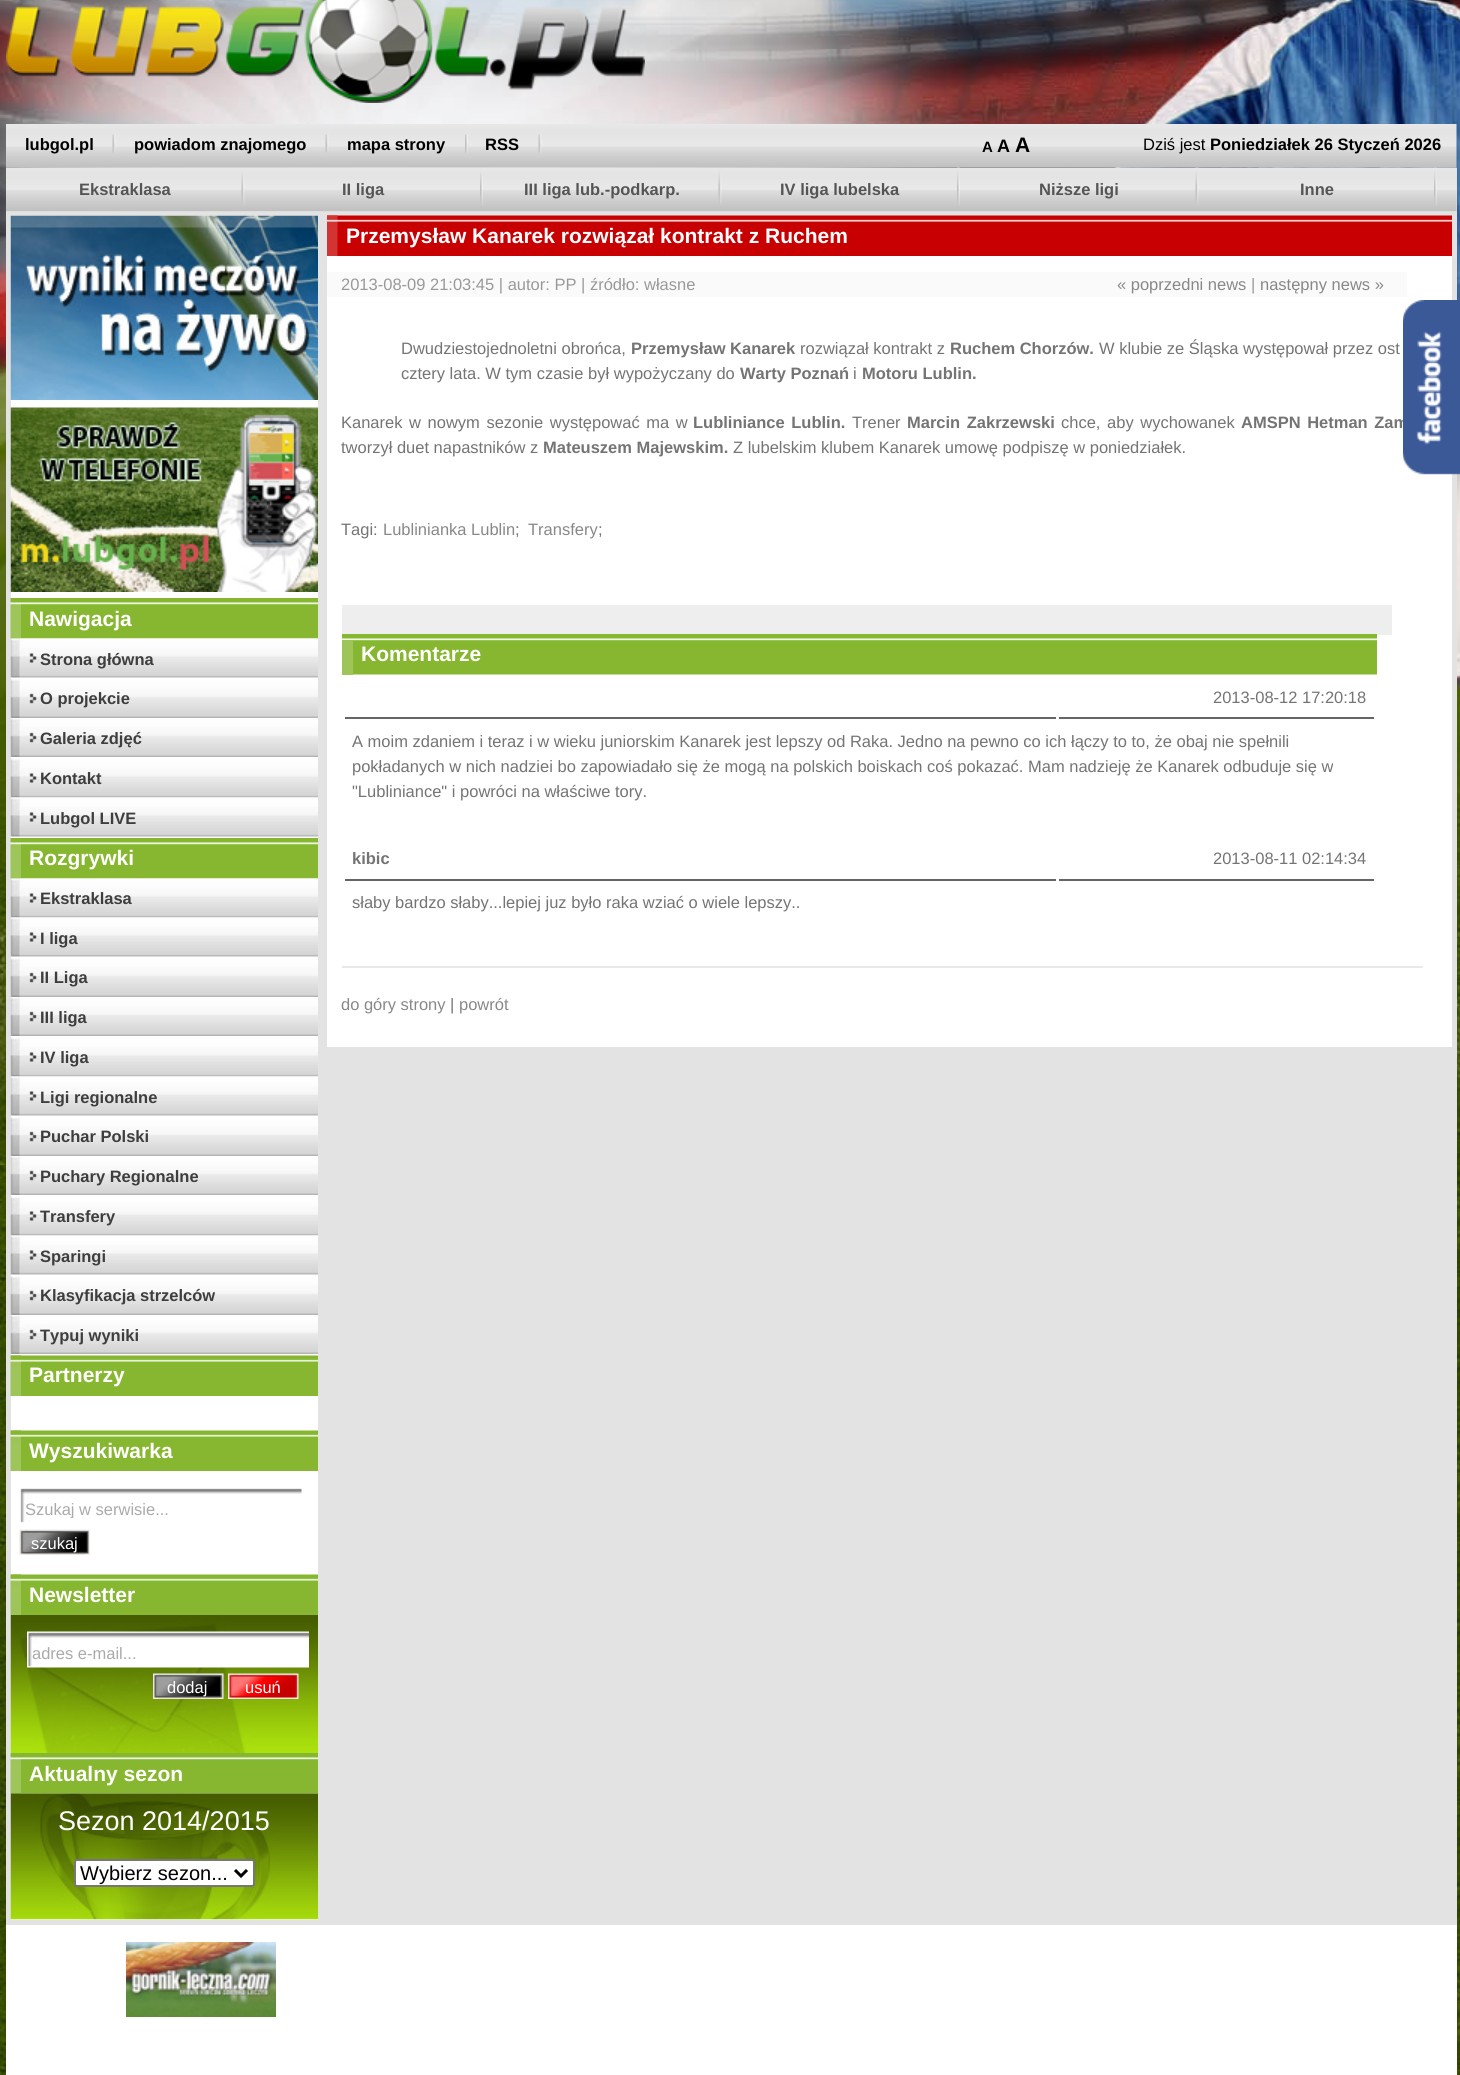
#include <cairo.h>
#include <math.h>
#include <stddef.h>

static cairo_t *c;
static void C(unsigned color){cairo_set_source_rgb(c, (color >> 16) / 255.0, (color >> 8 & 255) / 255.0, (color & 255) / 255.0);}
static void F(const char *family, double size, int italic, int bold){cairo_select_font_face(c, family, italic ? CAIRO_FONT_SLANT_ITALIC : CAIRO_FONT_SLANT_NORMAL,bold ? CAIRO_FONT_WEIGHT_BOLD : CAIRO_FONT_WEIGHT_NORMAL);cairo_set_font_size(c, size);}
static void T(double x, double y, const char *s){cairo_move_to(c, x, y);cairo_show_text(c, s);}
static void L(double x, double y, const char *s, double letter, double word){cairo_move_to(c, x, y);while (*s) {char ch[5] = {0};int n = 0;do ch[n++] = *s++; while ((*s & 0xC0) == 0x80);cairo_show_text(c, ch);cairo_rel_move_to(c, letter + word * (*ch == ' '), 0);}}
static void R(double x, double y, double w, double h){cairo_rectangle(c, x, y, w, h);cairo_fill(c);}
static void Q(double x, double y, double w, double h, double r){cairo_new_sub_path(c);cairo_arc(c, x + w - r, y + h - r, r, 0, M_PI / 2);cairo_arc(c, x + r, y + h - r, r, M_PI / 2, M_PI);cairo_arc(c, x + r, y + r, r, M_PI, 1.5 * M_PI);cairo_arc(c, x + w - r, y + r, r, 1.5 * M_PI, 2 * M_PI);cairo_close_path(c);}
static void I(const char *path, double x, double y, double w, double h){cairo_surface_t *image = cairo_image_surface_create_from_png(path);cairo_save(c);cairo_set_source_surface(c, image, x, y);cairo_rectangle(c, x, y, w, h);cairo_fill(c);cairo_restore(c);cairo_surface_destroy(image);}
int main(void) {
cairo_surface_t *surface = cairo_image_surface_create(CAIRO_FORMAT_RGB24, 1460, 2075);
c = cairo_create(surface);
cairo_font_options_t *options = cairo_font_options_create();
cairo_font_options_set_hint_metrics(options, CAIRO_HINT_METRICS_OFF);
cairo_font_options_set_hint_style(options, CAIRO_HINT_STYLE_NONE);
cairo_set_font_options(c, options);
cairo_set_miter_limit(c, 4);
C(0xffffff);
cairo_paint(c);
I("1.png",0,1178,1460,897);
I("2.png",0,0,1460,1179);
I("3.png",6,0,639,103);
C(0xdedede);
R(6,168,1451,44);
I("7.png",6,167,1451,44);
I("10.png",718,167,4,38);
I("11.png",957,167,3,39);
I("12.png",1195,167,4,38);
I("13.png",1434,167,3,39);
I("4.png",6,124,1451,44);
I("5.png",112,134,4,19);
F("Liberation Sans",16.5,0,1);
C(0x000000);
T(25,150,"lubgol.pl");
I("5.png",325,134,4,19);
T(134,150,"powiadom znajomego");
I("6.png",465,134,3,19);
T(347,150,"mapa strony");
I("5.png",538,134,4,19);
T(485,150,"RSS");
F("Liberation Sans",15,0,1);
T(982,152,"A");
F("Liberation Sans",18,0,1);
T(997,152,"A");
F("Liberation Sans",21,0,1);
T(1015,152,"A");
F("Liberation Sans",16.5,0,0);
T(1143,150,"Dziś jest");
F("Liberation Sans",16.5,0,1);
T(1210,150,"Poniedziałek 26 Styczeń 2026");
I("8.png",241,172,4,33);
C(0x555555);
T(79,195,"Ekstraklasa");
I("9.png",480,172,3,34);
T(342,195,"II liga");
T(524,195,"III liga lub.-podkarp.");
T(780,195,"IV liga lubelska");
T(1039,195,"Niższe ligi");
T(1300,195,"Inne");
C(0xe3e3e3);
R(6,212,1451,1713);
C(0xffffff);
R(11,400,307,1520);
I("14.png",10,215,308,185);
I("15.png",10,407,308,185);
I("16.png",10,598,308,41);
I("17.png",10,598,11,41);
F("Liberation Sans",21,0,1);
T(29,626,"Nawigacja");
I("18.png",10,638,308,40);
F("Liberation Sans",16.5,0,1);
C(0x3e3e3e);
T(40,665,"Strona główna");
I("19.png",10,679,308,39);
T(40,704,"O projekcie");
I("19.png",10,718,308,39);
T(40,744,"Galeria zdjęć");
I("20.png",10,758,308,40);
T(40,784,"Kontakt");
I("21.png",10,797,308,40);
T(40,824,"Lubgol LIVE");
I("16.png",10,838,308,41);
I("17.png",10,838,11,41);
F("Liberation Sans",21,0,1);
C(0xffffff);
T(29,865,"Rozgrywki");
I("18.png",10,878,308,40);
F("Liberation Sans",16.5,0,1);
C(0x3e3e3e);
T(40,904,"Ekstraklasa");
I("21.png",10,917,308,40);
T(40,944,"I liga");
I("19.png",10,958,308,39);
T(40,983,"II Liga");
I("19.png",10,997,308,39);
T(40,1023,"III liga");
I("20.png",10,1037,308,40);
T(40,1063,"IV liga");
I("21.png",10,1076,308,40);
T(40,1103,"Ligi regionalne");
I("19.png",10,1117,308,39);
T(40,1142,"Puchar Polski");
I("19.png",10,1156,308,39);
T(40,1182,"Puchary Regionalne");
I("20.png",10,1196,308,40);
T(40,1222,"Transfery");
I("21.png",10,1235,308,40);
T(40,1262,"Sparingi");
I("19.png",10,1276,308,39);
T(40,1301,"Klasyfikacja strzelców");
I("19.png",10,1315,308,39);
T(40,1341,"Typuj wyniki");
I("22.png",10,1355,308,41);
I("23.png",10,1355,11,41);
F("Liberation Sans",21,0,1);
C(0xffffff);
T(29,1382,"Partnerzy");
I("22.png",10,1430,308,41);
I("23.png",10,1430,11,41);
T(29,1458,"Wyszukiwarka");
I("24.png",20,1488,282,35);
cairo_save(c);
cairo_rectangle(c,26,1500,270,18);
cairo_clip(c);
F("Liberation Sans",16.5,0,0);
C(0xaaaaaa);
T(25,1515,"Szukaj w serwisie...");
cairo_restore(c);
I("25.png",19,1529,71,26);
F("Liberation Sans",16.5,0,0);
T(31,1549,"szukaj");
I("22.png",10,1574,308,41);
I("23.png",10,1574,11,41);
F("Liberation Sans",21,0,1);
T(29,1602,"Newsletter");
I("26.png",10,1615,308,138);
I("27.png",27,1631,282,37);
F("Liberation Sans",16.5,0,0);
C(0xaaaaaa);
T(32,1659,"adres e-mail...");
I("28.png",153,1673,71,26);
C(0xffffff);
T(167,1693,"dodaj");
I("29.png",228,1673,71,26);
T(245,1693,"usuń");
I("16.png",10,1753,308,41);
I("17.png",10,1753,11,41);
F("Liberation Sans",21,0,1);
T(29,1781,"Aktualny sezon");
I("30.png",10,1793,308,127);
F("Liberation Sans",27,0,0);
T(58,1830,"Sezon 2014/2015");
Q(75,1860,179,26,2);
cairo_fill_preserve(c);
C(0x767676);
cairo_stroke(c);
cairo_new_path(c);
cairo_move_to(c,235,1870);
cairo_line_to(c,241,1876);
cairo_line_to(c,247,1870);
C(0x000000);
cairo_set_line_width(c,3);
cairo_stroke(c);
F("Liberation Sans",20,0,0);
T(80,1880,"Wybierz sezon...");
C(0xffffff);
R(327,256,1125,791);
I("31.png",327,215,1125,41);
I("32.png",327,215,11,41);
F("Liberation Sans",21,0,1);
T(346,243,"Przemysław Kanarek rozwiązał kontrakt z Ruchem");
C(0xfafafa);
R(327,272,1080,25);
F("Liberation Sans",16.5,0,0);
C(0x999999);
T(341,290,"2013-08-09 21:03:45 | autor: PP | źródło: własne");
C(0x888888);
T(1117,290,"« poprzedni news");
C(0x999999);
T(1251,290,"|");
C(0x888888);
T(1260,290,"następny news »");
C(0x747474);
T(401,354,"Dwudziestojednoletni obrońca,");
F("Liberation Sans",16.5,0,1);
T(631,354,"Przemysław Kanarek");
F("Liberation Sans",16.5,0,0);
T(800,354,"rozwiązał kontrakt z");
F("Liberation Sans",16.5,0,1);
T(950,354,"Ruchem Chorzów.");
F("Liberation Sans",16.5,0,0);
T(1099,354,"W klubie ze Śląska występował przez ost");
T(401,379,"cztery lata. W tym czasie był wypożyczany do");
F("Liberation Sans",16.5,0,1);
T(740,379,"Warty Poznań");
F("Liberation Sans",16.5,0,0);
T(853,379,"i");
F("Liberation Sans",16.5,0,1);
T(862,379,"Motoru Lublin.");
F("Liberation Sans",16.5,0,0);
L(341,428,"Kanarek w nowym sezonie występować ma w",0,2);
F("Liberation Sans",16.5,0,1);
L(693,428,"Lubliniance Lublin.",0,2);
F("Liberation Sans",16.5,0,0);
T(852,428,"Trener");
F("Liberation Sans",16.5,0,1);
L(907,428,"Marcin Zakrzewski",0,2);
F("Liberation Sans",16.5,0,0);
L(1061,428,"chce, aby wychowanek",0,2);
F("Liberation Sans",16.5,0,1);
L(1241,428,"AMSPN Hetman Zam",0,2);
F("Liberation Sans",16.5,0,0);
T(341,453,"tworzył duet napastników z");
F("Liberation Sans",16.5,0,1);
T(543,453,"Mateuszem Majewskim.");
F("Liberation Sans",16.5,0,0);
T(733,453,"Z lubelskim klubem Kanarek umowę podpiszę w poniedziałek.");
T(341,535,"Tagi:");
C(0x888888);
T(383,535,"Lublinianka Lublin");
C(0x747474);
T(515,535,";");
C(0x888888);
T(528,535,"Transfery");
C(0x747474);
T(598,535,";");
C(0xeeeeee);
R(342,605,1050,30);
I("33.png",342,634,1035,41);
C(0x9ec55a);
R(342,640,11,35);
F("Liberation Sans",21,0,1);
C(0xffffff);
T(361,661,"Komentarze");
C(0x656565);
R(1059,717,315,2);
F("Liberation Sans",16.5,0,0);
C(0x747474);
T(1213,703,"2013-08-12 17:20:18");
C(0x656565);
R(345,717,711,2);
C(0x747474);
T(352,747,"A moim zdaniem i teraz i w wieku juniorskim Kanarek jest lepszy od Raka. Jedno na pewno co ich łączy to to, że obaj nie spełnili");
T(352,772,"pokładanych w nich nadziei bo zapowiadało się że mogą na polskich boiskach coś pokazać. Mam nadzieję że Kanarek odbuduje się w");
T(352,797,"\"Lubliniance\" i powróci na właściwe tory.");
C(0x656565);
R(345,879,711,2);
F("Liberation Sans",16.5,0,1);
C(0x747474);
T(352,864,"kibic");
C(0x656565);
R(1059,879,315,2);
F("Liberation Sans",16.5,0,0);
C(0x747474);
T(1213,864,"2013-08-11 02:14:34");
T(352,908,"słaby bardzo słaby...lepiej juz było raka wziać o wiele lepszy..");
C(0xe8e8e8);
R(342,966,1080,2);
C(0xeeeeee);
R(1421,966,2,2);
C(0x888888);
T(341,1010,"do góry strony");
C(0x747474);
T(450,1010,"|");
C(0x888888);
T(459,1010,"powrót");
C(0xffffff);
R(6,1925,1451,150);
I("34.png",126,1942,150,75);
I("35.png",1403,300,57,175);
cairo_surface_write_to_png(surface, "o.png");
cairo_font_options_destroy(options);
cairo_destroy(c);
cairo_surface_destroy(surface);
return 0;
}
